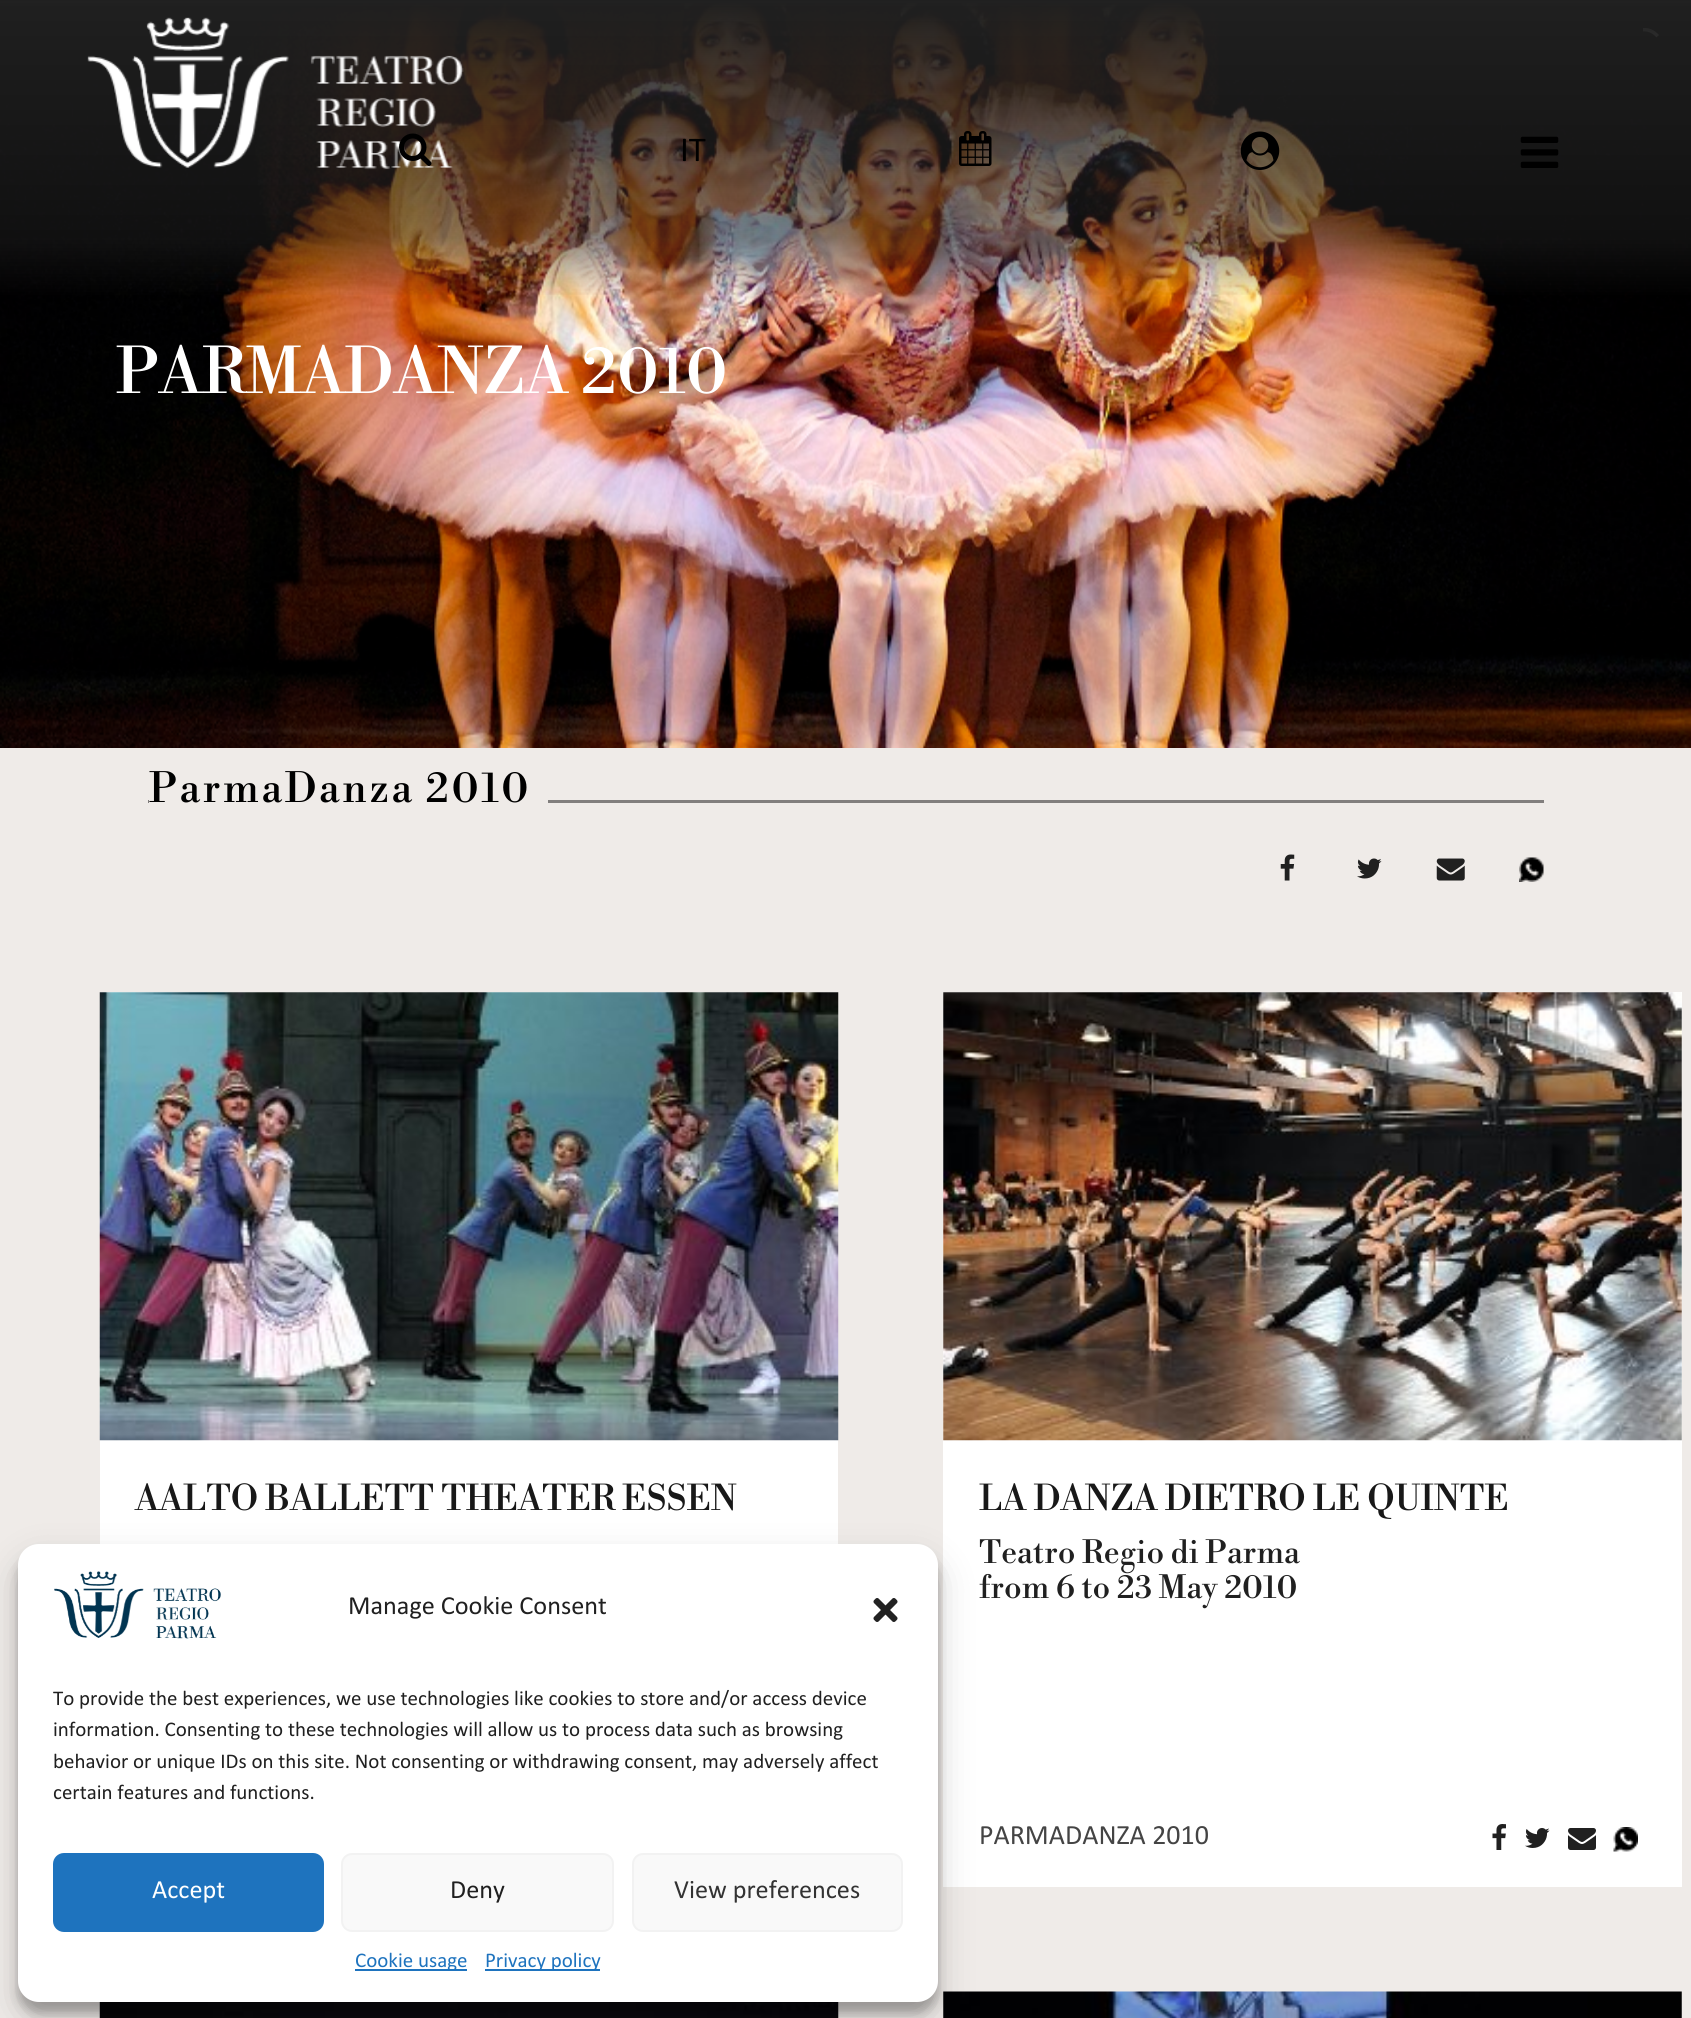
#include <cairo.h>
#include <math.h>
#include <stddef.h>

static cairo_t *c;
static void C(unsigned color){cairo_set_source_rgb(c, (color >> 16) / 255.0, (color >> 8 & 255) / 255.0, (color & 255) / 255.0);}
static void F(const char *family, double size, int italic, int bold){cairo_select_font_face(c, family, italic ? CAIRO_FONT_SLANT_ITALIC : CAIRO_FONT_SLANT_NORMAL,bold ? CAIRO_FONT_WEIGHT_BOLD : CAIRO_FONT_WEIGHT_NORMAL);cairo_set_font_size(c, size);}
static void T(double x, double y, const char *s){cairo_move_to(c, x, y);cairo_show_text(c, s);}
static void L(double x, double y, const char *s, double letter, double word){cairo_move_to(c, x, y);while (*s) {char ch[5] = {0};int n = 0;do ch[n++] = *s++; while ((*s & 0xC0) == 0x80);cairo_show_text(c, ch);cairo_rel_move_to(c, letter + word * (*ch == ' '), 0);}}
static void R(double x, double y, double w, double h){cairo_rectangle(c, x, y, w, h);cairo_fill(c);}
static void Q(double x, double y, double w, double h, double r){cairo_new_sub_path(c);cairo_arc(c, x + w - r, y + h - r, r, 0, M_PI / 2);cairo_arc(c, x + r, y + h - r, r, M_PI / 2, M_PI);cairo_arc(c, x + r, y + r, r, M_PI, 1.5 * M_PI);cairo_arc(c, x + w - r, y + r, r, 1.5 * M_PI, 2 * M_PI);cairo_close_path(c);}
static void S(double x, double y, double w, double h, double r, double blur, double alpha){cairo_push_group_with_content(c, CAIRO_CONTENT_ALPHA);cairo_set_operator(c, CAIRO_OPERATOR_SOURCE);for (int i = 15; i >= -15 && fmin(w, h) + blur * i / 3 > 0; i -= 2) {double e = blur * i / 6;cairo_set_source_rgba(c, 0, 0, 0, alpha * erfc((i - 1) / 8.5) / 2);Q(x - e, y - e, w + 2 * e, h + 2 * e, fmax(0, fmin(r + e + blur * .6, fmin(w, h) / 2 + e)));cairo_fill(c);}cairo_pattern_t *soft = cairo_pop_group(c);cairo_mask(c, soft);cairo_pattern_destroy(soft);}
static void I(const char *path, double x, double y, double w, double h){cairo_surface_t *image = cairo_image_surface_create_from_png(path);cairo_save(c);cairo_set_source_surface(c, image, x, y);cairo_rectangle(c, x, y, w, h);cairo_fill(c);cairo_restore(c);cairo_surface_destroy(image);}
int main(void) {
cairo_surface_t *surface = cairo_image_surface_create(CAIRO_FORMAT_RGB24, 1691, 2018);
c = cairo_create(surface);
cairo_font_options_t *options = cairo_font_options_create();
cairo_font_options_set_hint_metrics(options, CAIRO_HINT_METRICS_OFF);
cairo_font_options_set_hint_style(options, CAIRO_HINT_STYLE_NONE);
cairo_set_font_options(c, options);
cairo_set_miter_limit(c, 4);
cairo_pattern_t *gradient;
C(0xefebe8);
cairo_paint(c);
I("6.png",0,3,1691,745);
cairo_save(c);
cairo_rectangle(c,1643,28,21,42);
cairo_clip(c);
cairo_new_path(c);
cairo_move_to(c,1645,19.5);
cairo_line_to(c,1659,35);
cairo_line_to(c,1627.5,63);
cairo_line_to(c,1613.5,47.5);
cairo_close_path(c);
cairo_clip(c);
cairo_new_path(c);
cairo_move_to(c,1657.5,36);
cairo_curve_to(c,1674.5,55,1645.5,80.5,1629,62);
cairo_curve_to(c,1612,43,1641,17.5,1657.5,36);
cairo_close_path(c);
C(0xa6a6a6);
cairo_set_line_width(c,3.5);
cairo_stroke(c);
cairo_restore(c);
gradient = cairo_pattern_create_linear(846,0,846,298);
cairo_pattern_add_color_stop_rgba(gradient,0,0.125,0.125,0.125,1);
cairo_pattern_add_color_stop_rgba(gradient,.8,0.125,0.125,0.125,.5);
cairo_pattern_add_color_stop_rgba(gradient,1,0.125,0.125,0.125,0);
cairo_set_source(c,gradient);
cairo_pattern_destroy(gradient);
R(0,0,1691,295);
I("1.png",87,17,377,153);
I("2.png",399,133,33,33);
F("Calibri",35,0,0);
C(0x000000);
T(680,161,"IT");
I("3.png",959,131,33,35);
I("4.png",1240,131,40,39);
I("5.png",1520,136,39,32);
F("Libre Bodoni",63,0,0);
C(0xffffff);
T(116,393,"PARMADANZA 2010");
C(0x817e7d);
R(148,800,1396,3);
C(0xefebe8);
R(149,800,399,3);
F("Libre Bodoni",41,0,0);
C(0x000000);
L(149,802,"ParmaDanza 2010",2.5,0);
I("7.png",1280,854,15,27);
I("8.png",1357,858,25,21);
I("9.png",1436,858,29,23);
I("10.png",1519,857,25,25);
C(0xffffff);
R(100,992,738,552);
I("11.png",99,992,740,449);
F("Libre Bodoni",35,0,0);
C(0x181818);
T(135,1510,"AALTO BALLETT THEATER ESSEN");
C(0xffffff);
R(943,992,739,895);
I("12.png",943,992,739,449);
C(0x181818);
T(979,1510,"LA DANZA DIETRO LE QUINTE");
F("Libre Bodoni",31.5,0,0);
C(0x202020);
T(979,1563,"Teatro Regio di Parma");
T(979,1598,"from 6 to 23 May 2010");
F("Calibri",28,0,0);
C(0x444444);
T(979,1844,"PARMADANZA 2010");
I("13.png",1492,1824,14,26);
I("14.png",1525,1828,25,20);
I("15.png",1568,1828,28,22);
I("16.png",1613,1827,25,25);
I("17.png",99,2002,740,16);
I("18.png",943,1991,739,27);
C(0x000000);
S(18,1554,920,459,21,5,.23);
S(18,1561,920,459,21,17.5,.19);
C(0xffffff);
Q(18,1544,920,458,21);
cairo_fill(c);
I("19.png",54,1571,167,68);
F("Calibri",26.25,0,0);
C(0x202020);
T(348,1614,"Manage Cookie Consent");
I("20.png",873,1598,25,24);
F("Calibri",21,0,0);
T(53,1705,"To provide the best experiences, we use technologies like cookies to store and/or access device");
T(53,1736,"information. Consenting to these technologies will allow us to process data such as browsing");
T(53,1768,"behavior or unique IDs on this site. Not consenting or withdrawing consent, may adversely affect");
T(53,1799,"certain features and functions.");
C(0x1e73be);
Q(54,1854,269,77,10);
cairo_fill_preserve(c);
cairo_stroke(c);
F("Calibri",26.25,0,0);
C(0xffffff);
T(152,1898,"Accept");
C(0xf9f9f9);
Q(342,1854,271,77,10);
cairo_fill_preserve(c);
C(0xf2f2f2);
cairo_stroke(c);
C(0x202020);
T(450,1898,"Deny");
C(0xf9f9f9);
Q(633,1854,269,77,10);
cairo_fill_preserve(c);
C(0xf2f2f2);
cairo_stroke(c);
C(0x333333);
T(674,1898,"View preferences");
C(0x1e73be);
R(355,1969,112,2);
F("Calibri",21,0,0);
T(355,1967,"Cookie usage");
R(485,1969,115,2);
T(485,1967,"Privacy policy");
cairo_surface_write_to_png(surface, "o.png");
cairo_font_options_destroy(options);
cairo_destroy(c);
cairo_surface_destroy(surface);
return 0;
}
